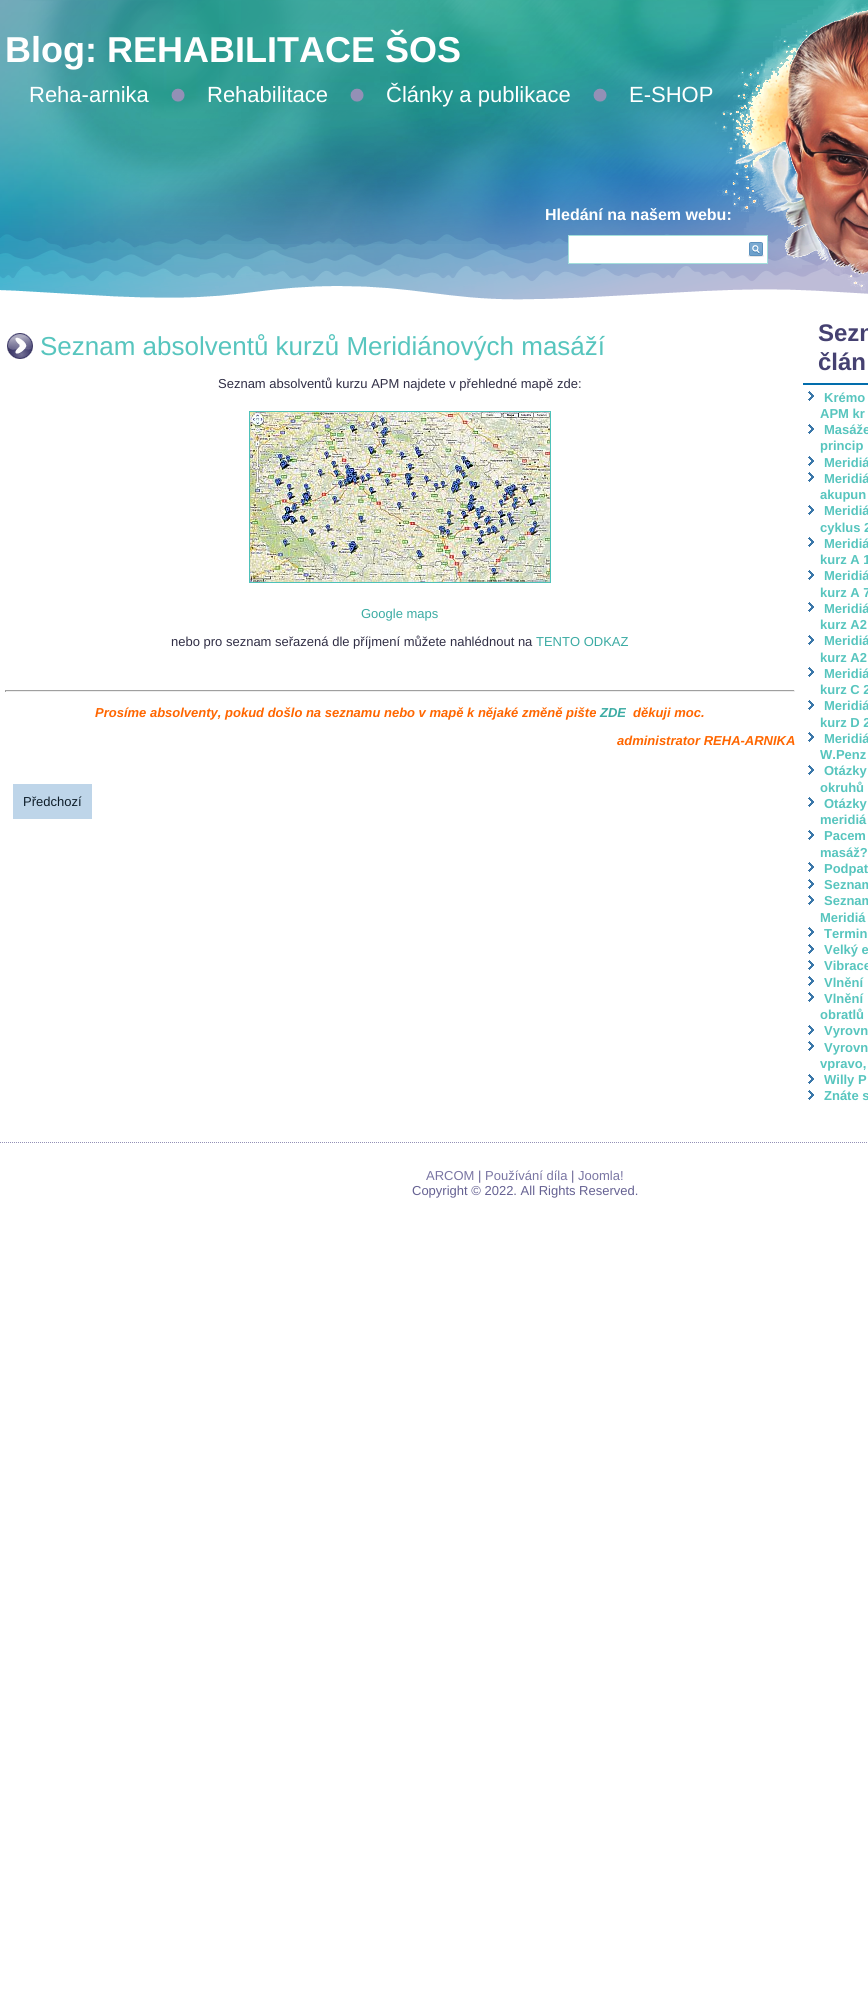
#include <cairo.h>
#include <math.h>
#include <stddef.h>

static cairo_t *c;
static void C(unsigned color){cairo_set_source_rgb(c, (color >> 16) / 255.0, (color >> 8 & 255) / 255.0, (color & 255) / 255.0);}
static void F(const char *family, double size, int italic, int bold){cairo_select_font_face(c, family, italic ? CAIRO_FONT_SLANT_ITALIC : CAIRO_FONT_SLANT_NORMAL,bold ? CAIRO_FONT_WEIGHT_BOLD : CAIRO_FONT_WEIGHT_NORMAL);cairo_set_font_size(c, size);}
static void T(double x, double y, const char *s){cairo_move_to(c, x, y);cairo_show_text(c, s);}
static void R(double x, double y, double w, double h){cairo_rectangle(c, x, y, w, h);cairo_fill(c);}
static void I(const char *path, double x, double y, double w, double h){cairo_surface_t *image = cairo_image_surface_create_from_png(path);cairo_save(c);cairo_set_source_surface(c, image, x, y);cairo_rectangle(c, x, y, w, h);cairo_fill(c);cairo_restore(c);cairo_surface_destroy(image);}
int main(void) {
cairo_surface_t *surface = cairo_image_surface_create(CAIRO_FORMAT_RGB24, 868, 1992);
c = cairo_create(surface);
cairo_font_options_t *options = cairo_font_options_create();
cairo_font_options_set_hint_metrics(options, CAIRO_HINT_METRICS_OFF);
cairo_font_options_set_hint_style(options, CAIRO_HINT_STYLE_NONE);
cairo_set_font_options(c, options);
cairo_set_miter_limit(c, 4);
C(0xffffff);
cairo_paint(c);
I("1.png",0,0,868,300);
F("Liberation Sans",36,0,1);
C(0xffffff);
T(5,62,"Blog: REHABILITACE ŠOS");
F("Liberation Sans",22,0,0);
T(29,102,"Reha-arnika");
I("2.png",171,88,14,14);
T(207,102,"Rehabilitace");
I("3.png",350,88,14,14);
T(386,102,"Články a publikace");
I("4.png",593,88,14,14);
T(629,102,"E-SHOP");
F("Liberation Sans",16,0,1);
T(545,220,"Hledání na našem webu:");
cairo_rectangle(c,568.5,235.5,199,28);
cairo_fill_preserve(c);
C(0xa2dfdb);
cairo_set_line_width(c,1);
cairo_stroke(c);
I("5.png",748,242,16,15);
I("6.png",7,333,26,26);
F("Liberation Sans",26,0,0);
C(0x57c5be);
T(40,355,"Seznam absolventů kurzů Meridiánových masáží");
F("Liberation Sans",13,0,0);
C(0x302e45);
T(218,388,"Seznam absolventů kurzu APM najdete v přehledné mapě zde:");
cairo_rectangle(c,249.5,411.5,301,171);
C(0x4dc2ba);
cairo_stroke(c);
I("7.png",250,412,300,170);
C(0x3baba3);
T(361,618,"Google maps");
C(0x302e45);
T(171,646,"nebo pro seznam seřazená dle příjmení můžete nahlédnout na");
C(0x3baba3);
T(536,646,"TENTO ODKAZ");
C(0x9f9f9f);
R(5,690,790,1);
C(0xeeeeee);
R(794,690,1,2);
R(5,691,790,1);
C(0x9f9f9f);
R(5,690,1,2);
F("Liberation Sans",13,1,1);
C(0xff6600);
T(95,717,"Prosíme absolventy, pokud došlo na seznamu nebo v mapě k nějaké změně pište");
C(0x3baba3);
T(600,717,"ZDE");
C(0xff6600);
T(633,717,"děkuji moc.");
T(617,745,"administrator REHA-ARNIKA");
C(0xbed5e9);
R(13,784,79,35);
F("Liberation Sans",13,0,0);
C(0x0e1d29);
T(23,806,"Předchozí");
C(0x026dac);
R(803,383,65,2);
F("Liberation Sans",24,0,1);
C(0x454171);
T(818,341,"Sezn");
T(818,370,"člán");
I("8.png",808,391,6,10);
F("Liberation Sans",13,0,1);
C(0x57c5be);
T(824,402,"Krémo");
T(820,418,"APM kr");
I("8.png",808,424,6,10);
T(824,434,"Masáže");
T(820,450,"princip");
I("8.png",808,456,6,10);
T(824,467,"Meridiá");
I("8.png",808,472,6,10);
T(824,483,"Meridiá");
T(820,499,"akupun");
I("8.png",808,505,6,10);
T(824,515,"Meridiá");
T(820,532,"cyklus 2");
I("8.png",808,537,6,10);
T(824,548,"Meridiá");
T(820,564,"kurz A 1");
I("8.png",808,570,6,10);
T(824,580,"Meridiá");
T(820,597,"kurz A 7");
I("8.png",808,602,6,10);
T(824,613,"Meridiá");
T(820,629,"kurz A2");
I("8.png",808,635,6,10);
T(824,645,"Meridiá");
T(820,662,"kurz A2");
I("8.png",808,667,6,10);
T(824,678,"Meridiá");
T(820,694,"kurz C 2");
I("8.png",808,700,6,10);
T(824,710,"Meridiá");
T(820,727,"kurz D 2");
I("8.png",808,732,6,10);
T(824,743,"Meridiá");
T(820,759,"W.Penz");
I("8.png",808,765,6,10);
T(824,775,"Otázky");
T(820,792,"okruhů");
I("8.png",808,797,6,10);
T(824,808,"Otázky");
T(820,824,"meridiá");
I("8.png",808,830,6,10);
T(824,840,"Pacem");
T(820,857,"masáž?");
I("8.png",808,862,6,10);
T(824,873,"Podpat");
I("8.png",808,879,6,10);
T(824,889,"Seznam");
I("8.png",808,895,6,10);
T(824,905,"Seznam");
T(820,922,"Meridiá");
I("8.png",808,927,6,10);
T(824,938,"Termin");
I("8.png",808,944,6,10);
T(824,954,"Velký e");
I("8.png",808,960,6,10);
T(824,970,"Vibrace");
I("8.png",808,976,6,10);
T(824,987,"Vlnění");
I("8.png",808,992,6,10);
T(824,1003,"Vlnění");
T(820,1019,"obratlů");
I("8.png",808,1025,6,10);
T(824,1035,"Vyrovn");
I("8.png",808,1041,6,10);
T(824,1052,"Vyrovn");
T(820,1068,"vpravo,");
I("8.png",808,1074,6,10);
T(824,1084,"Willy P");
I("8.png",808,1090,6,10);
T(824,1100,"Znáte s");
cairo_new_path(c);
cairo_move_to(c,0,1142.5);
cairo_line_to(c,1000,1142.5);
C(0x9390b6);
cairo_set_dash(c,(double[]){1,1},2,0);
cairo_stroke(c);
F("Liberation Sans",13,0,0);
C(0x7975a3);
T(426,1180,"ARCOM");
C(0x656192);
T(478,1180,"|");
C(0x7975a3);
T(485,1180,"Používání díla");
C(0x656192);
T(571,1180,"|");
C(0x7975a3);
T(578,1180,"Joomla!");
C(0x656192);
T(412,1195,"Copyright © 2022. All Rights Reserved.");
cairo_surface_write_to_png(surface, "o.png");
cairo_font_options_destroy(options);
cairo_destroy(c);
cairo_surface_destroy(surface);
return 0;
}
